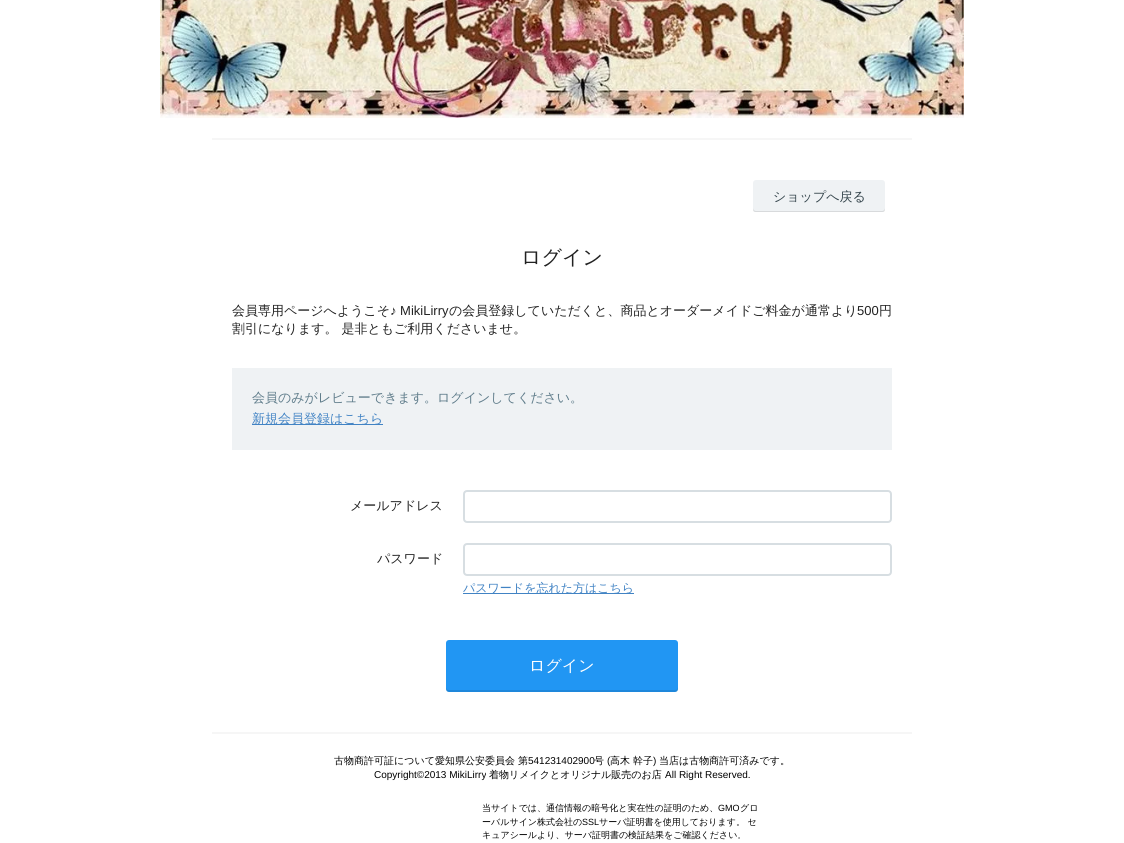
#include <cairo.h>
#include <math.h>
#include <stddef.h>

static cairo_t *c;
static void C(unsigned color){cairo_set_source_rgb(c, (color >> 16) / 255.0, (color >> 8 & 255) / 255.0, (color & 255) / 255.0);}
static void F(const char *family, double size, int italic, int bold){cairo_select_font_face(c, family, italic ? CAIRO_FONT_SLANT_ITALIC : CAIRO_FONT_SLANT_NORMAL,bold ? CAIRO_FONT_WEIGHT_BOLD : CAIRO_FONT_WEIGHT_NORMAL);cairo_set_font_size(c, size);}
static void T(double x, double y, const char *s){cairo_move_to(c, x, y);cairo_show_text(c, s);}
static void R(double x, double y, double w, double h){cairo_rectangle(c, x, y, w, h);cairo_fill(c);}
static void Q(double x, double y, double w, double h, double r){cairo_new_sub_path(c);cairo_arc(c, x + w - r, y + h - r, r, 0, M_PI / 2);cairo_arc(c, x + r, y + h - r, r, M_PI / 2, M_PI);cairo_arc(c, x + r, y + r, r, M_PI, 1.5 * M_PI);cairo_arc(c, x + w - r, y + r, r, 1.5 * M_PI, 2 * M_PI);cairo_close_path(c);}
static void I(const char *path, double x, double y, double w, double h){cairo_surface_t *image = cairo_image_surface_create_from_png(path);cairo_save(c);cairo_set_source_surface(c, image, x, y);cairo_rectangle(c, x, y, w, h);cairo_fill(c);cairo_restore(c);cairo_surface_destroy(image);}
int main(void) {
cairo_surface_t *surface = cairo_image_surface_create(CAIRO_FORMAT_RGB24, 1124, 843);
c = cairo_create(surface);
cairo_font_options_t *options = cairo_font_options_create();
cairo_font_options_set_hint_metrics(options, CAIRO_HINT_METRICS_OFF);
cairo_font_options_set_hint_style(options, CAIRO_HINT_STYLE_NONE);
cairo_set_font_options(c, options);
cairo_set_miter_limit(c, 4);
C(0xffffff);
cairo_paint(c);
I("1.png",160,0,804,118);
C(0xf6f6f6);
R(212,138,700,2);
R(212,732,700,2);
C(0xeff2f4);
Q(753,180,132,32,3);
cairo_fill(c);
cairo_set_source_rgba(c,0,0,0,0.1);
cairo_new_path(c);
cairo_move_to(c,753,208);
cairo_curve_to(c,753,210,753,212,755,212);
cairo_line_to(c,883,212);
cairo_curve_to(c,885,212,885,210,885,208);
cairo_curve_to(c,885,209,884,211,882,211);
cairo_line_to(c,756,211);
cairo_curve_to(c,754,211,753,209,753,208);
cairo_close_path(c);
cairo_fill(c);
F("WenQuanYi Zen Hei Medium",13,0,0);
C(0x35454c);
T(773,201,"ショップへ戻る");
F("WenQuanYi Zen Hei Medium",20,0,0);
C(0x222222);
T(521,264,"ログイン");
F("WenQuanYi Zen Hei Medium",13,0,0);
T(232,315,"会員専用ページへようこそ");
F("Liberation Sans",13,0,0);
T(390,315,"♪ MikiLirry");
F("WenQuanYi Zen Hei Medium",13,0,0);
T(449,315,"の会員登録していただくと、商品とオーダーメイドご料金が通常より");
F("Liberation Sans",13,0,0);
T(857,315,"500");
F("WenQuanYi Zen Hei Medium",13,0,0);
T(879,315,"円");
T(232,333,"割引になります。 是非ともご利用くださいませ。");
C(0xeff2f4);
R(232,368,660,82);
C(0x607d8b);
T(252,402,"会員のみがレビューできます。ログインしてください。");
C(0x4183c4);
R(252,424,131,1);
T(252,423,"新規会員登録はこちら");
C(0x222222);
T(350,510,"メールアドレス");
Q(464,491,427,31,3);
C(0xd7dee2);
cairo_stroke(c);
C(0x222222);
T(377,563,"パスワード");
Q(464,544,427,31,3);
C(0xd7dee2);
cairo_stroke(c);
C(0x4183c4);
R(463,593,171,1);
F("WenQuanYi Zen Hei Medium",12,0,0);
T(463,592,"パスワードを忘れた方はこちら");
C(0x2196f3);
Q(446,640,232,52,3);
cairo_fill(c);
cairo_set_source_rgba(c,0,0,0,0.1);
cairo_new_path(c);
cairo_move_to(c,446,687);
cairo_line_to(c,446,689);
cairo_curve_to(c,446,691,447,692,449,692);
cairo_line_to(c,675,692);
cairo_curve_to(c,677,692,678,691,678,689);
cairo_line_to(c,678,687);
cairo_curve_to(c,678,689,677,690,675,690);
cairo_line_to(c,449,690);
cairo_curve_to(c,447,690,446,689,446,687);
cairo_close_path(c);
cairo_fill(c);
F("WenQuanYi Zen Hei Medium",16,0,0);
C(0xffffff);
T(529,671,"ログイン");
F("WenQuanYi Zen Hei Medium",10,0,0);
C(0x000000);
T(334,764,"古物商許可証について愛知県公安委員会 第");
F("Liberation Sans",10,0,0);
T(528,764,"541231402900");
F("WenQuanYi Zen Hei Medium",10,0,0);
T(594,764,"号");
F("Liberation Sans",10,0,0);
T(607,764,"(");
F("WenQuanYi Zen Hei Medium",10,0,0);
T(610,764,"高木 幹子");
F("Liberation Sans",10,0,0);
T(653,764,")");
F("WenQuanYi Zen Hei Medium",10,0,0);
T(659,764,"当店は古物商許可済みです。");
F("Liberation Sans",10,0,0);
T(374,778,"Copyright©2013 MikiLirry");
F("WenQuanYi Zen Hei Medium",10,0,0);
T(489,778,"着物リメイクとオリジナル販売のお店");
F("Liberation Sans",10,0,0);
T(665,778,"All Right Reserved.");
F("WenQuanYi Zen Hei Medium",9,0,0);
T(482,811,"当サイトでは、通信情報の暗号化と実在性の証明のため、");
F("Liberation Sans",9,0,0);
T(718,811,"GMO");
F("WenQuanYi Zen Hei Medium",9,0,0);
T(740,811,"グロ");
T(482,825,"ーバルサイン株式会社の");
F("Liberation Sans",9,0,0);
T(582,825,"SSL");
F("WenQuanYi Zen Hei Medium",9,0,0);
T(599,825,"サーバ証明書を使用しております。 セ");
T(482,838,"キュアシールより、サーバ証明書の検証結果をご確認ください。");
cairo_surface_write_to_png(surface, "o.png");
cairo_font_options_destroy(options);
cairo_destroy(c);
cairo_surface_destroy(surface);
return 0;
}
